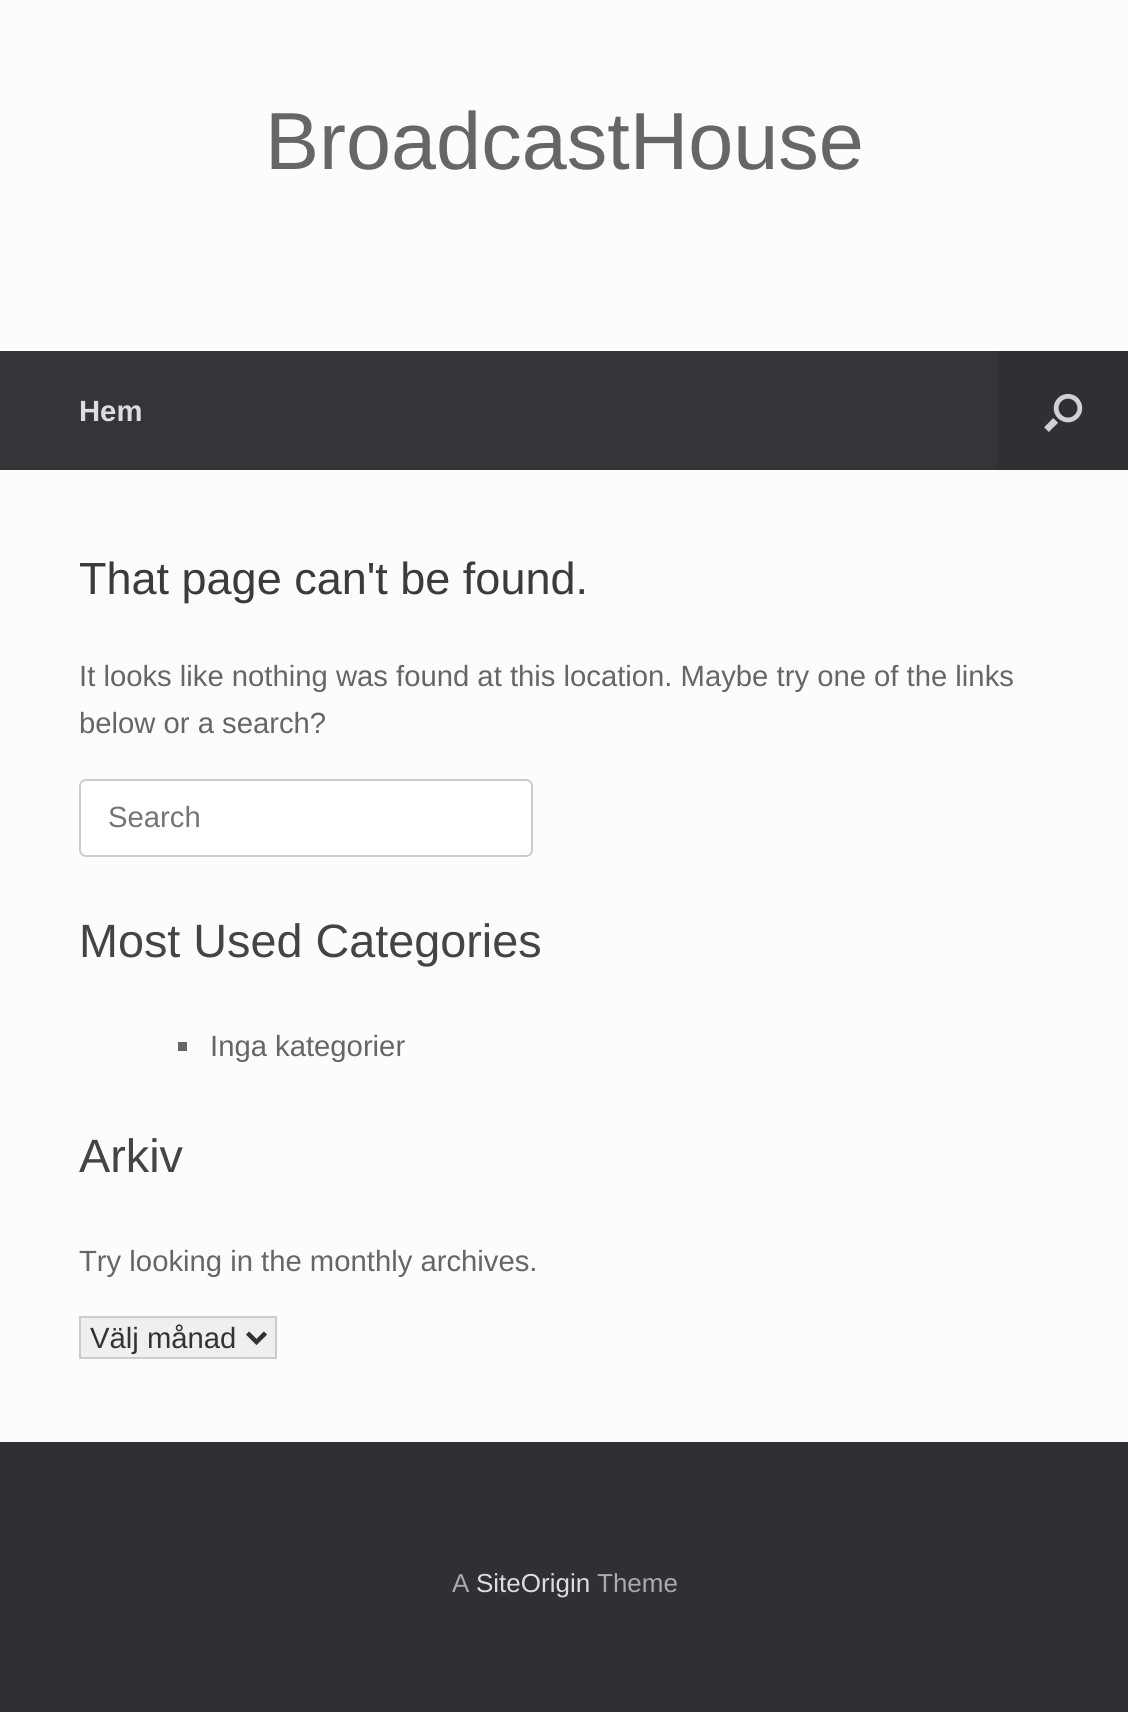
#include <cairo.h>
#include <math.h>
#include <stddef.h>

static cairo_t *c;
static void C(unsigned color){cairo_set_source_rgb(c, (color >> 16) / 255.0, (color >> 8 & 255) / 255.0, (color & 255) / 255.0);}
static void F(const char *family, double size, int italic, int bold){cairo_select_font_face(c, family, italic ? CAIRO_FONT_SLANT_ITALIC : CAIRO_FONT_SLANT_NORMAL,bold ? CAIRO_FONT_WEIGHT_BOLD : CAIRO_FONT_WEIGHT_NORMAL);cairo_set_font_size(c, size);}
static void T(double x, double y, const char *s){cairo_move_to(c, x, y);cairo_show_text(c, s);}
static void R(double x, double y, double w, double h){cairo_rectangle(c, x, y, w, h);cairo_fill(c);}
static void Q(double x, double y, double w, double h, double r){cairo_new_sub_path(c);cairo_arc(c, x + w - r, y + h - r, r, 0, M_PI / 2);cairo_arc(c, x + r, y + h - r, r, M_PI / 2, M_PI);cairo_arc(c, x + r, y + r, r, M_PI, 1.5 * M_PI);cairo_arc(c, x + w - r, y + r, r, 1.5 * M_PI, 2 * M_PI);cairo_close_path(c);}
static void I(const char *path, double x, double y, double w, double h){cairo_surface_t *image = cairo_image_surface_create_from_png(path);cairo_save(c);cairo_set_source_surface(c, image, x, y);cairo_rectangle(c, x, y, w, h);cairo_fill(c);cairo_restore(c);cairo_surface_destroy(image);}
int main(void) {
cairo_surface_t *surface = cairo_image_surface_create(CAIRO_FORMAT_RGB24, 1128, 1712);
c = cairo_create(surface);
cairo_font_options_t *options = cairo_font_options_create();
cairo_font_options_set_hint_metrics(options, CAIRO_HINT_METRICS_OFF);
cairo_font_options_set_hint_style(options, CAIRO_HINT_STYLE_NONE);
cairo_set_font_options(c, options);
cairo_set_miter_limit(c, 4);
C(0x2f3033);
cairo_paint(c);
C(0xfcfcfc);
R(0,0,1128,351);
F("Liberation Sans",81,0,0);
C(0x666666);
T(265,169,"BroadcastHouse");
C(0x343538);
R(0,351,997,119);
F("Liberation Sans",29.25,0,1);
C(0xdddddd);
T(79,421,"Hem");
I("1.png",1044,393,39,39);
C(0xfcfcfc);
R(0,470,1128,972);
F("Liberation Sans",45,0,0);
C(0x3b3b3b);
T(79,594,"That page can't be found.");
F("Liberation Sans",29.25,0,0);
C(0x666666);
T(79,686,"It looks like nothing was found at this location. Maybe try one of the links");
T(79,733,"below or a search?");
C(0xffffff);
Q(80,780,452,76,6);
cairo_fill_preserve(c);
C(0xcccccc);
cairo_stroke(c);
C(0x757575);
T(108,827,"Search");
F("Liberation Sans",46.75,0,0);
C(0x444444);
T(79,957,"Most Used Categories");
C(0x666666);
R(178,1042,9,9);
F("Liberation Sans",29.25,0,0);
T(210,1056,"Inga kategorier");
F("Liberation Sans",46.75,0,0);
C(0x444444);
T(79,1172,"Arkiv");
F("Liberation Sans",29.25,0,0);
C(0x666666);
T(79,1271,"Try looking in the monthly archives.");
C(0xefefef);
cairo_rectangle(c,80,1317,196,41);
cairo_fill_preserve(c);
C(0xcccccc);
cairo_stroke(c);
cairo_new_path(c);
cairo_move_to(c,247.5,1333);
cairo_line_to(c,256.5,1342);
cairo_line_to(c,265.5,1333);
C(0x333333);
cairo_set_line_width(c,4.5);
cairo_stroke(c);
T(90,1348,"Välj månad");
F("Liberation Sans",26,0,0);
C(0xaaaaaa);
T(452,1592,"A");
C(0xdddddd);
T(476,1592,"SiteOrigin");
C(0xaaaaaa);
T(597,1592,"Theme");
cairo_surface_write_to_png(surface, "o.png");
cairo_font_options_destroy(options);
cairo_destroy(c);
cairo_surface_destroy(surface);
return 0;
}
